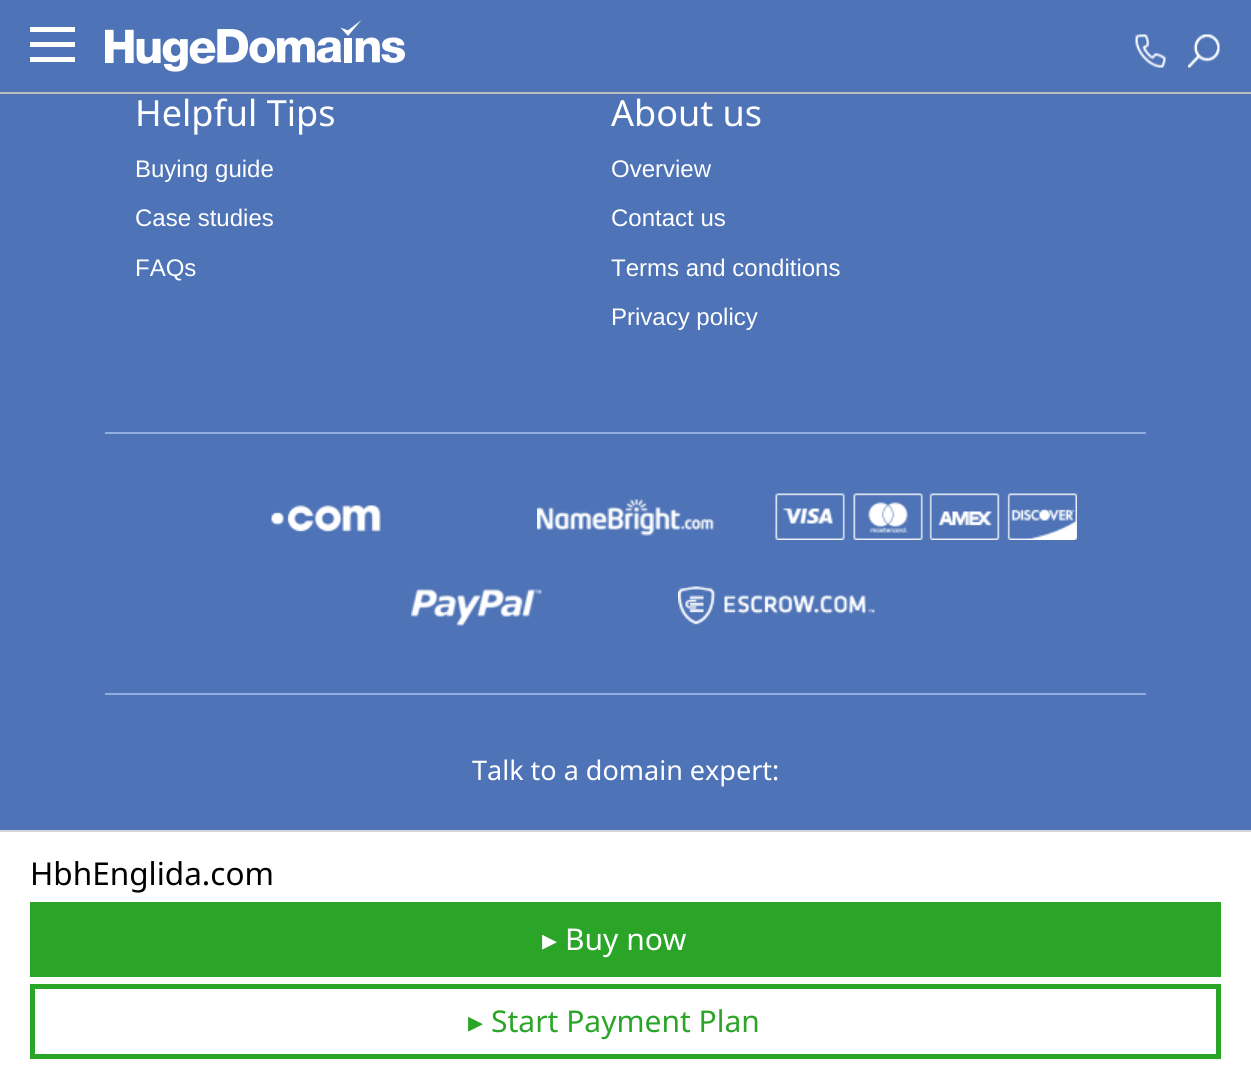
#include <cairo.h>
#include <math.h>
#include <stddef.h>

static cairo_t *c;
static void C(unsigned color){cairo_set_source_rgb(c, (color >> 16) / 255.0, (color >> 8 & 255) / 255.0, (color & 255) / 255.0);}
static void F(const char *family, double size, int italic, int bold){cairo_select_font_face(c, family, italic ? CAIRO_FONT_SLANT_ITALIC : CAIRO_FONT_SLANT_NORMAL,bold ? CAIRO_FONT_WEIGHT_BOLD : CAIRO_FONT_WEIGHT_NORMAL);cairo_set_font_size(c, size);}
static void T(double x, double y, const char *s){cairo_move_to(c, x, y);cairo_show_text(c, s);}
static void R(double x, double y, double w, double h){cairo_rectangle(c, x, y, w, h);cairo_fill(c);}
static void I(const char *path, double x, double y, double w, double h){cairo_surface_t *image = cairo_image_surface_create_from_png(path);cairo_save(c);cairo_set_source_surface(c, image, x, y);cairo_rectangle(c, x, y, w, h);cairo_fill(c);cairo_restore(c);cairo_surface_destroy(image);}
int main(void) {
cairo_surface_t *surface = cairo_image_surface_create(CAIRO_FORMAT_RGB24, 1251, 1089);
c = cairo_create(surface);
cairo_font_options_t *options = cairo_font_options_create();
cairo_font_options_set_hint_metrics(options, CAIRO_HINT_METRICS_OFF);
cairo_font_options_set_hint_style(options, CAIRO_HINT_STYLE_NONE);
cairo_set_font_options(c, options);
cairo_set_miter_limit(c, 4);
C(0x4e73b7);
cairo_paint(c);
C(0xbbbbbb);
R(0,92,1251,2);
C(0xffffff);
R(30,42,45,5);
R(30,27,45,5);
R(30,57,45,5);
I("1.png",105,20,300,52);
I("2.png",1135,34,31,34);
I("3.png",1188,34,32,34);
C(0x92aee1);
R(105,432,1041,2);
F("Noto Sans",36,0,0);
C(0xffffff);
T(135,126,"Helpful Tips");
F("Liberation Sans",24,0,0);
T(135,177,"Buying guide");
T(135,226,"Case studies");
T(135,276,"FAQs");
F("Noto Sans",36,0,0);
T(611,126,"About us");
F("Liberation Sans",24,0,0);
T(611,177,"Overview");
T(611,226,"Contact us");
T(611,276,"Terms and conditions");
T(611,325,"Privacy policy");
C(0x92aee1);
R(105,693,1041,2);
I("4.png",271,505,110,27);
I("5.png",537,499,177,37);
I("6.png",775,493,302,47);
I("7.png",411,589,131,37);
I("8.png",678,586,197,39);
F("Noto Sans",27,0,0);
C(0xffffff);
T(472,780,"Talk to a domain expert:");
R(0,832,1251,257);
C(0xd2d6da);
R(0,830,1251,2);
F("Noto Sans",31.5,0,0);
C(0x000000);
T(30,885,"HbhEnglida.com");
C(0x2aa527);
R(30,902,1191,75);
F("DejaVu Sans",30,0,0);
C(0xffffff);
T(542,950,"▸");
F("Noto Sans",30,0,0);
T(565,950,"Buy now");
cairo_rectangle(c,32.5,986.5,1186,70);
C(0x2aa527);
cairo_set_line_width(c,5);
cairo_stroke(c);
F("DejaVu Sans",30,0,0);
T(468,1032,"▸");
F("Noto Sans",30,0,0);
T(491,1032,"Start Payment Plan");
cairo_surface_write_to_png(surface, "o.png");
cairo_font_options_destroy(options);
cairo_destroy(c);
cairo_surface_destroy(surface);
return 0;
}
